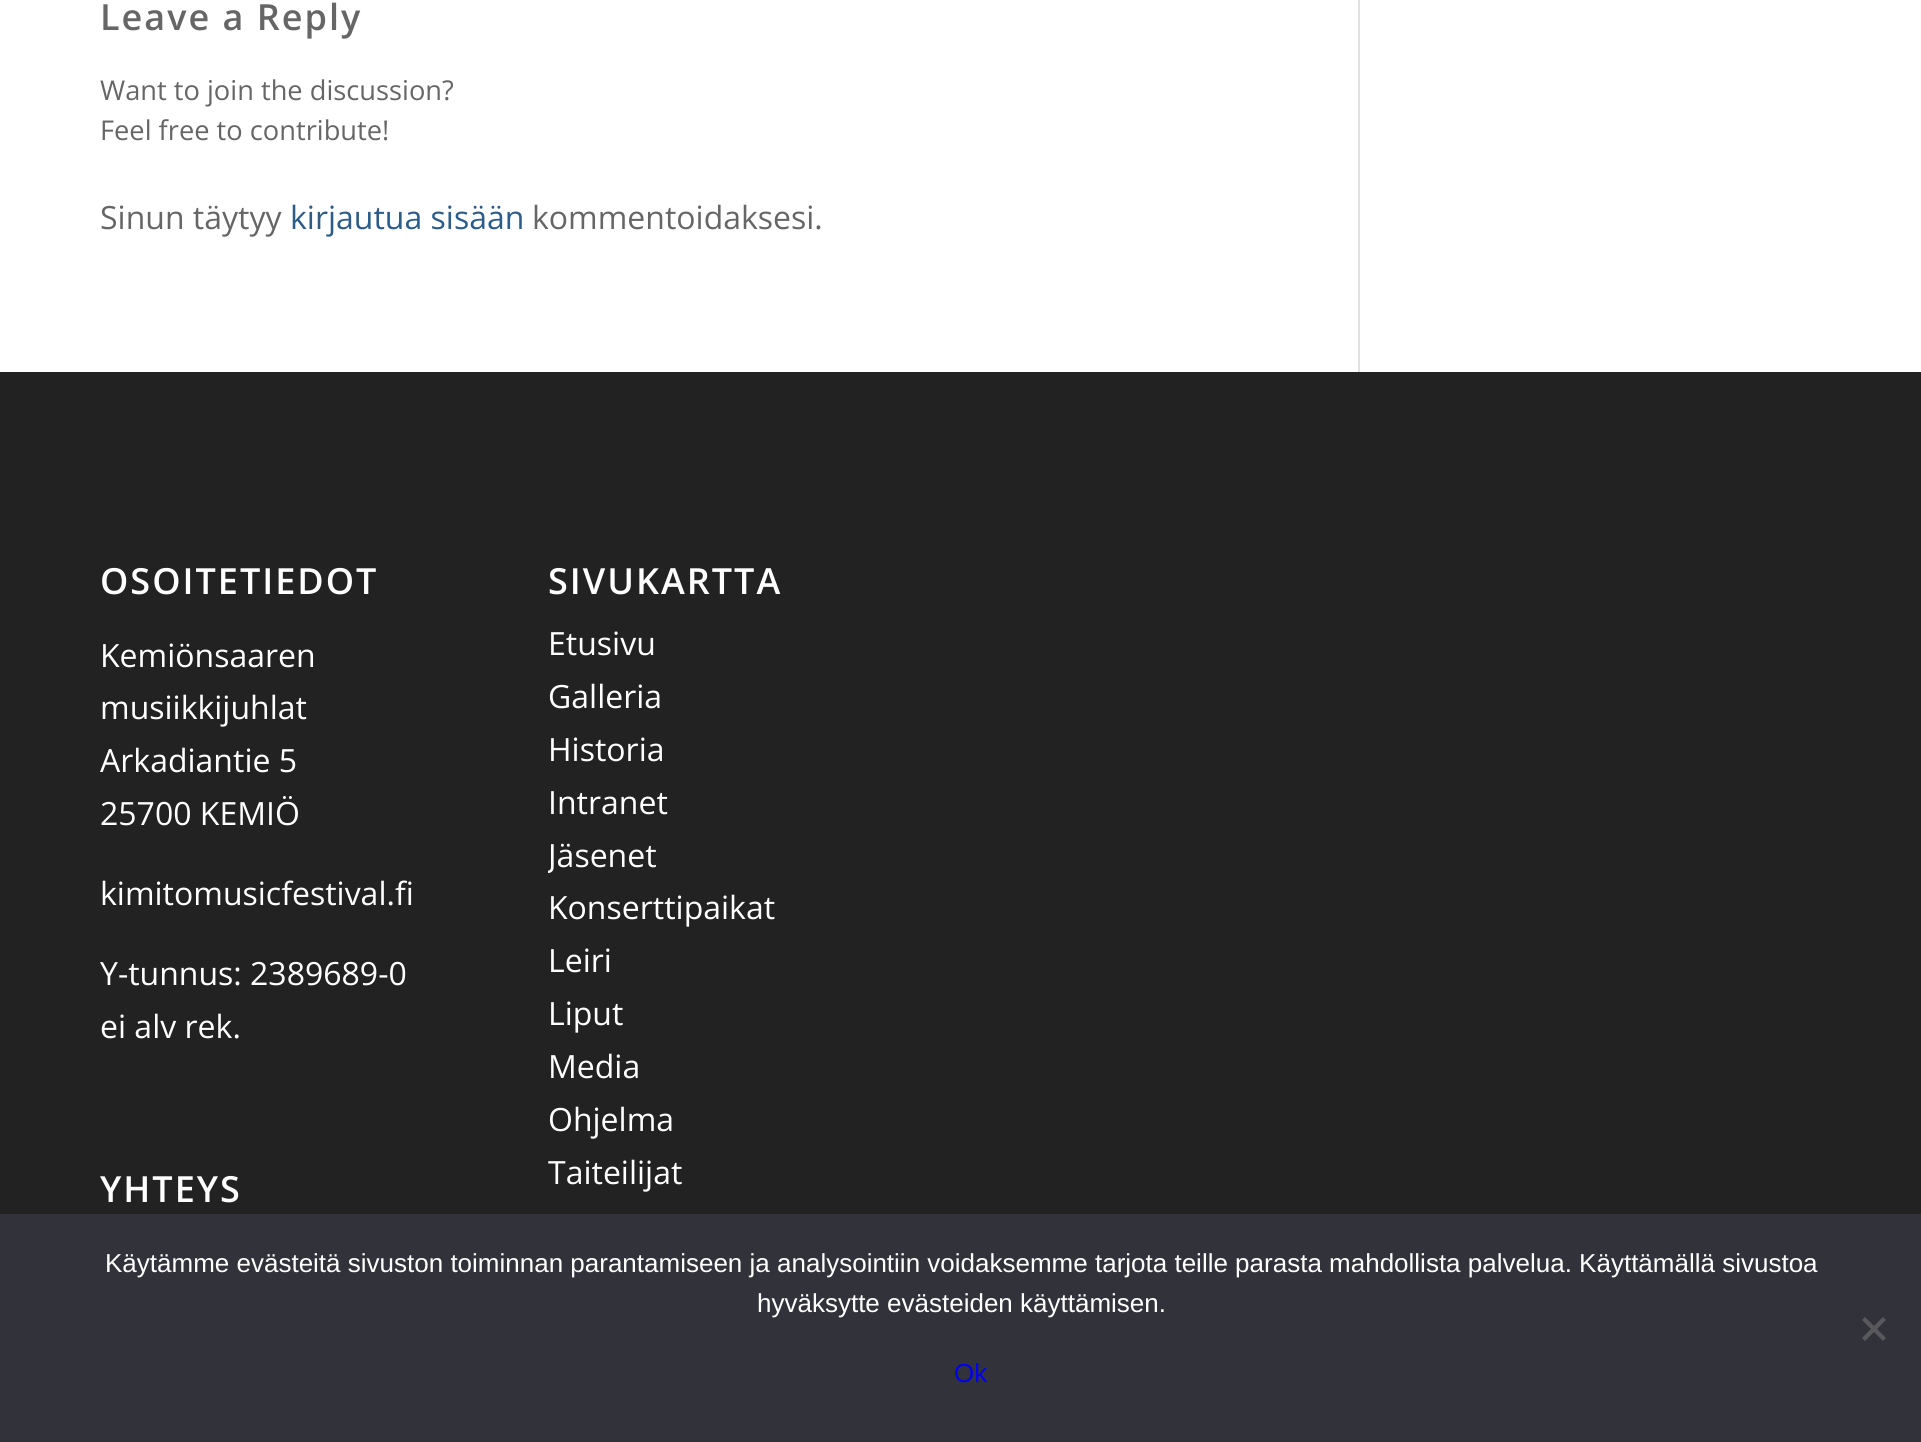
#include <cairo.h>
#include <math.h>
#include <stddef.h>

static cairo_t *c;
static void C(unsigned color){cairo_set_source_rgb(c, (color >> 16) / 255.0, (color >> 8 & 255) / 255.0, (color & 255) / 255.0);}
static void F(const char *family, double size, int italic, int bold){cairo_select_font_face(c, family, italic ? CAIRO_FONT_SLANT_ITALIC : CAIRO_FONT_SLANT_NORMAL,bold ? CAIRO_FONT_WEIGHT_BOLD : CAIRO_FONT_WEIGHT_NORMAL);cairo_set_font_size(c, size);}
static void T(double x, double y, const char *s){cairo_move_to(c, x, y);cairo_show_text(c, s);}
static void L(double x, double y, const char *s, double letter, double word){cairo_move_to(c, x, y);while (*s) {char ch[5] = {0};int n = 0;do ch[n++] = *s++; while ((*s & 0xC0) == 0x80);cairo_show_text(c, ch);cairo_rel_move_to(c, letter + word * (*ch == ' '), 0);}}
static void R(double x, double y, double w, double h){cairo_rectangle(c, x, y, w, h);cairo_fill(c);}
int main(void) {
cairo_surface_t *surface = cairo_image_surface_create(CAIRO_FORMAT_RGB24, 1921, 1442);
c = cairo_create(surface);
cairo_font_options_t *options = cairo_font_options_create();
cairo_font_options_set_hint_metrics(options, CAIRO_HINT_METRICS_OFF);
cairo_font_options_set_hint_style(options, CAIRO_HINT_STYLE_NONE);
cairo_set_font_options(c, options);
cairo_set_miter_limit(c, 4);
C(0xffffff);
cairo_paint(c);
C(0xe1e1e1);
R(1358,0,2,372);
F("Open Sans SemiBold",36,0,0);
C(0x666666);
L(100,30,"Leave a Reply",2,0);
F("Open Sans",27.25,0,0);
T(100,100,"Want to join the discussion?");
T(100,140,"Feel free to contribute!");
F("Open Sans",32,0,0);
T(100,229,"Sinun täytyy");
C(0x2d5c88);
T(290,229,"kirjautua sisään");
C(0x666666);
T(532,229,"kommentoidaksesi.");
C(0x222222);
R(0,372,1921,842);
F("Open Sans SemiBold",36,0,0);
C(0xffffff);
L(100,594,"OSOITETIEDOT",2,0);
F("Open Sans",32,0,0);
T(100,667,"Kemiönsaaren");
T(100,719,"musiikkijuhlat");
T(100,772,"Arkadiantie 5");
T(100,825,"25700 KEMIÖ");
T(100,905,"kimitomusicfestival.fi");
T(100,985,"Y-tunnus: 2389689-0");
T(100,1038,"ei alv rek.");
F("Open Sans SemiBold",36,0,0);
L(100,1202,"YHTEYS",2,0);
L(548,594,"SIVUKARTTA",2,0);
F("Open Sans",32,0,0);
T(548,655,"Etusivu");
T(548,708,"Galleria");
T(548,761,"Historia");
T(548,814,"Intranet");
cairo_save(c);
cairo_rectangle(c,548,532,344,824);
cairo_clip(c);
T(548,867,"Jäsenet");
cairo_restore(c);
T(548,919,"Konserttipaikat");
T(548,972,"Leiri");
T(548,1025,"Liput");
T(548,1078,"Media");
T(548,1131,"Ohjelma");
T(548,1184,"Taiteilijat");
C(0x32323a);
R(0,1214,1921,228);
F("Liberation Sans",26,0,0);
C(0xffffff);
T(105,1272,"Käytämme evästeitä sivuston toiminnan parantamiseen ja analysointiin voidaksemme tarjota teille parasta mahdollista palvelua. Käyttämällä sivustoa");
T(757,1312,"hyväksytte evästeiden käyttämisen.");
C(0x59595d);
cairo_new_path(c);
cairo_move_to(c,1883,1317);
cairo_line_to(c,1886,1320);
cairo_line_to(c,1865,1341);
cairo_line_to(c,1862,1338);
cairo_close_path(c);
cairo_fill(c);
cairo_new_path(c);
cairo_move_to(c,1862,1320);
cairo_line_to(c,1865,1317);
cairo_line_to(c,1886,1338);
cairo_line_to(c,1883,1341);
cairo_close_path(c);
cairo_fill(c);
C(0x0000ee);
T(954,1382,"Ok");
cairo_surface_write_to_png(surface, "o.png");
cairo_font_options_destroy(options);
cairo_destroy(c);
cairo_surface_destroy(surface);
return 0;
}
